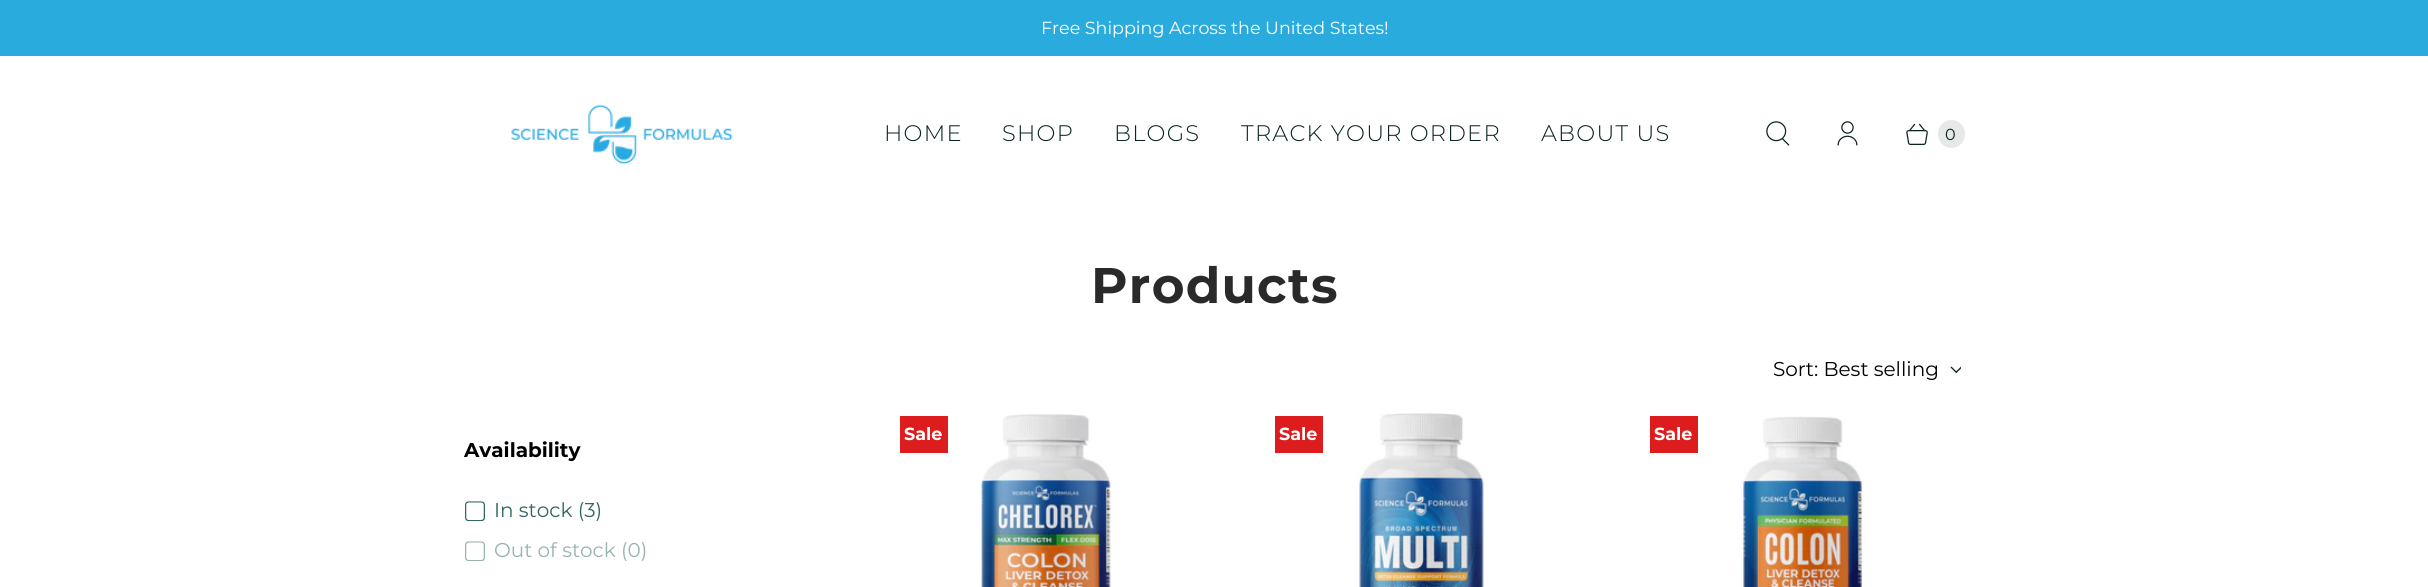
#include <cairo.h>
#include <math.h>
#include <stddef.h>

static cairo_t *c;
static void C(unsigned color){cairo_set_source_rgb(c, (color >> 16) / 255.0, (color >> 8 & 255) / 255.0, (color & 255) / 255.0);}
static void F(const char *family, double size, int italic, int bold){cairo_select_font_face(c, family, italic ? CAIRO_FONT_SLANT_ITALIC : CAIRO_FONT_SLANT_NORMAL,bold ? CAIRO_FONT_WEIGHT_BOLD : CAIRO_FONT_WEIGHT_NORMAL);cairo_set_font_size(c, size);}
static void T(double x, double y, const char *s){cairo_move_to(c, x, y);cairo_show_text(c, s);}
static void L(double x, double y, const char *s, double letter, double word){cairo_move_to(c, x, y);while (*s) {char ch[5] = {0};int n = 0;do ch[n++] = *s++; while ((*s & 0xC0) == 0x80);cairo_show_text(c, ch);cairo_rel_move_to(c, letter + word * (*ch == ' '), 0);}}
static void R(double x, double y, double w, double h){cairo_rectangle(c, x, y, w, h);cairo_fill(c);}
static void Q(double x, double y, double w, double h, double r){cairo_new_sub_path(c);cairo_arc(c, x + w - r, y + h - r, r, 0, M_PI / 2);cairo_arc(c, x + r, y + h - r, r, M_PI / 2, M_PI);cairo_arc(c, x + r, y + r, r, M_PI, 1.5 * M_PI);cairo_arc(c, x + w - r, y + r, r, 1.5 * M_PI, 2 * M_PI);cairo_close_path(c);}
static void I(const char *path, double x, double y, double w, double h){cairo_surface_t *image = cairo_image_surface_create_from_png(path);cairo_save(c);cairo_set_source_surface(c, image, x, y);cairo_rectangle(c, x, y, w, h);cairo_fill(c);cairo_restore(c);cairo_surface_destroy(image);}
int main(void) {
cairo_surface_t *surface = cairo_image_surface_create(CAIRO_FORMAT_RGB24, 2428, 587);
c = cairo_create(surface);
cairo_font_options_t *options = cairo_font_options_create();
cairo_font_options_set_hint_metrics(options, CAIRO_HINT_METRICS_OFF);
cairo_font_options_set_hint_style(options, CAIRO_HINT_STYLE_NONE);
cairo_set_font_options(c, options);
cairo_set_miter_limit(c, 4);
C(0xffffff);
cairo_paint(c);
C(0x2aabde);
R(0,0,2428,56);
F("Montserrat",17.5,0,0);
C(0xffffff);
T(1041,34,"Free Shipping Across the United States!");
I("1.png",511,104,222,61);
F("Montserrat Light",22.5,0,0);
C(0x0b2322);
L(884,141,"HOME",1.25,0);
L(1002,141,"SHOP",1.25,0);
L(1114,141,"BLOGS",1.25,0);
L(1241,141,"TRACK YOUR ORDER",1.25,0);
L(1541,141,"ABOUT US",1.25,0);
I("2.png",1766,121,24,25);
I("3.png",1837,121,21,25);
I("4.png",1906,123,22,22);
C(0xe7e9e9);
Q(1938,120,27,28,13.5);
cairo_fill(c);
F("Montserrat",16,0,0);
C(0x0b2322);
T(1945,140,"0");
F("Montserrat",50,0,1);
C(0x2a2a2a);
L(1091,303,"Products",1.25,0);
F("Montserrat",20,0,0);
C(0x000000);
T(1773,376,"Sort: Best selling");
I("5.png",1950,366,11,7);
C(0xdd1d1d);
R(900,416,48,37);
F("Montserrat",17.5,0,1);
C(0xffffff);
T(904,440,"Sale");
I("6.png",980,414,131,173);
C(0xdd1d1d);
R(1275,416,48,37);
C(0xffffff);
T(1279,440,"Sale");
I("7.png",1356,413,128,174);
C(0xdd1d1d);
R(1650,416,48,37);
C(0xffffff);
T(1654,440,"Sale");
I("8.png",1740,416,125,171);
F("Montserrat",20,0,1);
C(0x000000);
T(464,457,"Availability");
I("9.png",465,501,20,20);
F("Montserrat",20,0,0);
C(0x326663);
T(494,517,"In stock (3)");
I("10.png",465,541,20,20);
C(0x99b3b1);
T(494,557,"Out of stock (0)");
cairo_surface_write_to_png(surface, "o.png");
cairo_font_options_destroy(options);
cairo_destroy(c);
cairo_surface_destroy(surface);
return 0;
}
